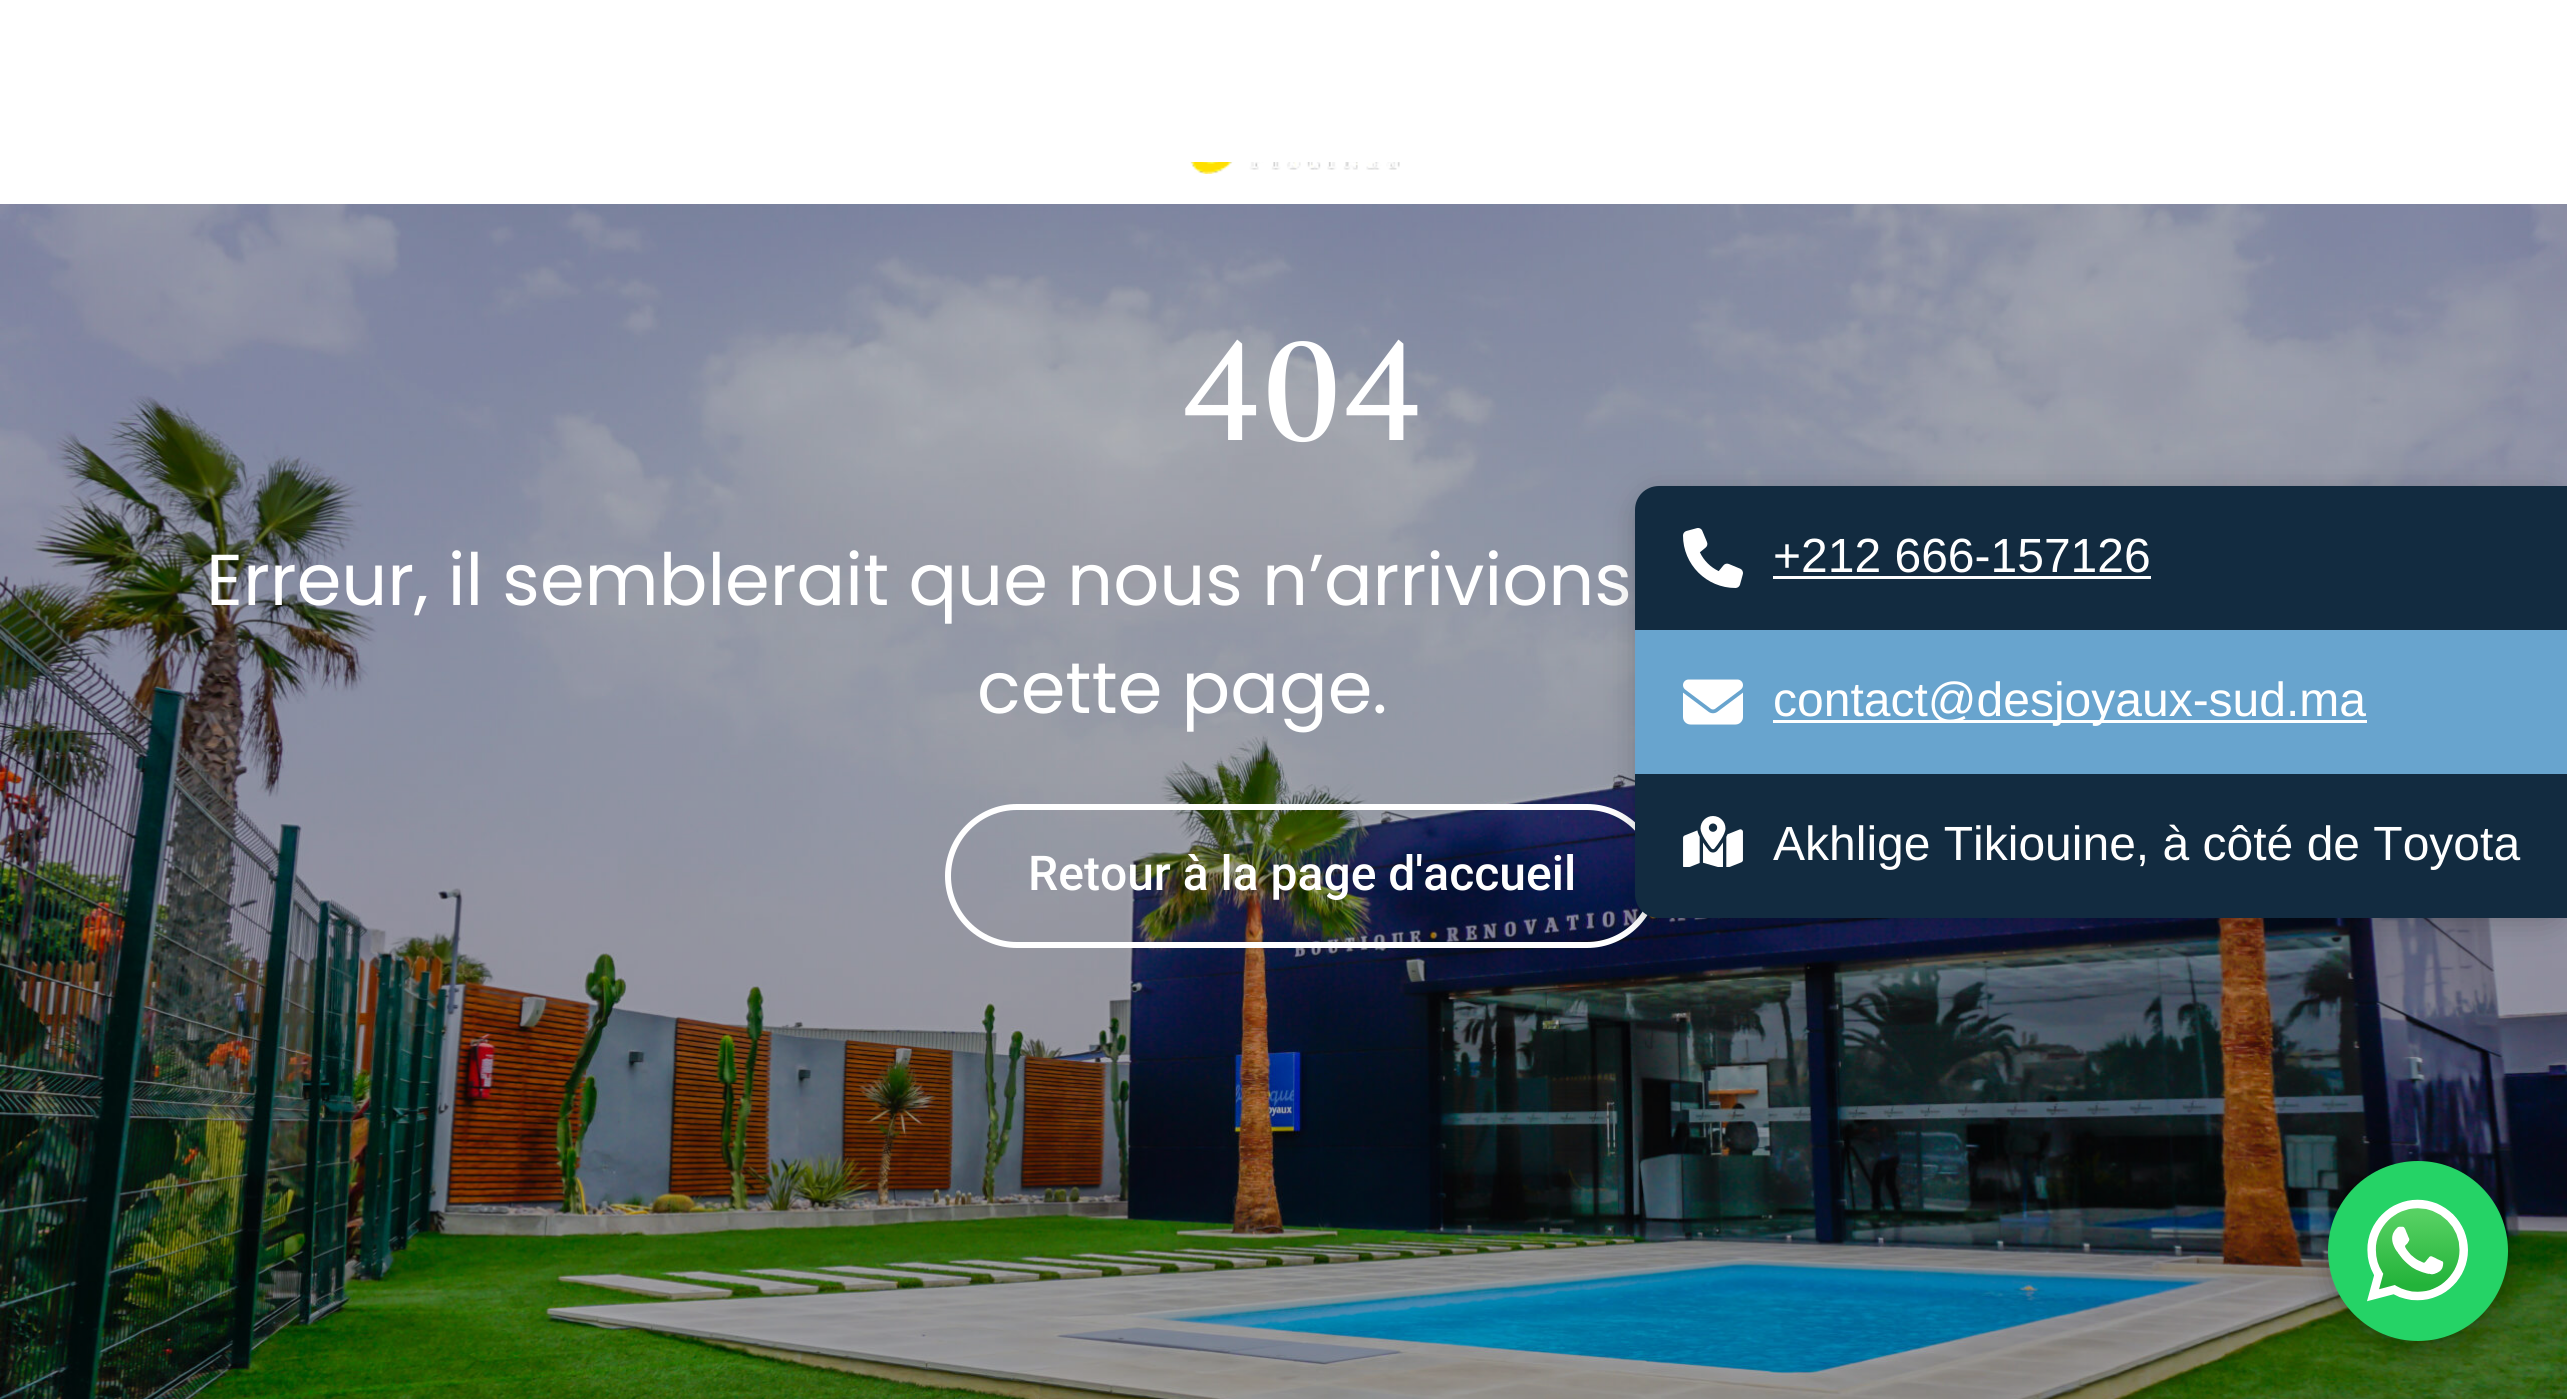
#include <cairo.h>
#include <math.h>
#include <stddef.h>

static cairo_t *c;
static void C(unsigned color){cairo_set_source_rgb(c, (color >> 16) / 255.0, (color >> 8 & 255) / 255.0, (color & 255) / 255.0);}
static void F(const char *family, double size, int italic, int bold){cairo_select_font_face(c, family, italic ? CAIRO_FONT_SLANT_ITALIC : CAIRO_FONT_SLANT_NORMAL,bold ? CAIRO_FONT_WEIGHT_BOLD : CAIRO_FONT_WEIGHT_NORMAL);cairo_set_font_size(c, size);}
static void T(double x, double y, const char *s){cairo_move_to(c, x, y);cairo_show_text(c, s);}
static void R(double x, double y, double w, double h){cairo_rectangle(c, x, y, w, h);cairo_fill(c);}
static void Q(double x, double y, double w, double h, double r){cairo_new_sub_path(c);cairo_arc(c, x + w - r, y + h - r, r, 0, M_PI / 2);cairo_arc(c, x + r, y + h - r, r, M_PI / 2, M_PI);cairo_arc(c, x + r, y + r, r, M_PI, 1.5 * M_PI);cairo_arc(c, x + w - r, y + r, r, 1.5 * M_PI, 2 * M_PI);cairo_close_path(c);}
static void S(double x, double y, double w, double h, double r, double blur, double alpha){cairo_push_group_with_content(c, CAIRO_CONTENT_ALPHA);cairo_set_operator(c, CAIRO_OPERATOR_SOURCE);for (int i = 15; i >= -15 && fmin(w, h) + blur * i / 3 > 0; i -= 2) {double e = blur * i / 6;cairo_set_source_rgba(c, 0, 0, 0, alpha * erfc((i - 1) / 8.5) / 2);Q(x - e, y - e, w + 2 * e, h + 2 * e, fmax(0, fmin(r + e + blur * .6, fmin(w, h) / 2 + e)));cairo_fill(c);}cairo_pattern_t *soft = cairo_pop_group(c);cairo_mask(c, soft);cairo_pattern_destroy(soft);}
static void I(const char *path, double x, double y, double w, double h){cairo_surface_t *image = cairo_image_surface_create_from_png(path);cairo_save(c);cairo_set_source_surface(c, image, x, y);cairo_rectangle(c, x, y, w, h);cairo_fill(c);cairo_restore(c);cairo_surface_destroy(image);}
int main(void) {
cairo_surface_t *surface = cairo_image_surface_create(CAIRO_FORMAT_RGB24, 2567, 1399);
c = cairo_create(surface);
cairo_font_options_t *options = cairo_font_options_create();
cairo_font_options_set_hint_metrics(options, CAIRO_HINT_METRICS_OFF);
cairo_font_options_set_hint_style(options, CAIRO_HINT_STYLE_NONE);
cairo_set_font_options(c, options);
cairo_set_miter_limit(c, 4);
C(0xffffff);
cairo_paint(c);
I("1.png",1190,162,210,12);
I("2.png",0,204,2567,1195);
F("Wittgenstein Medium",138,0,0);
C(0xffffff);
T(1181,440,"404");
F("Poppins",72,0,0);
T(206,605,"Erreur, il semblerait que nous n’arrivions");
T(977,713,"cette page.");
Q(948,807,708,138,69);
cairo_set_line_width(c,6);
cairo_stroke(c);
F("Roboto Medium",48,0,0);
T(1028,890,"Retour à la page d'accueil");
C(0x000000);
S(1635,492,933,432,24,15,.2);
C(0x122b40);
cairo_new_path(c);
cairo_move_to(c,1659,486);
cairo_line_to(c,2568,486);
cairo_line_to(c,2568,630);
cairo_line_to(c,1635,630);
cairo_line_to(c,1635,510);
cairo_curve_to(c,1635,496.5,1645.5,486,1659,486);
cairo_close_path(c);
cairo_fill(c);
I("3.png",1683,528,60,60);
F("Liberation Sans",48,0,0);
C(0xffffff);
T(1773,572,"+212 666-157126");
R(1773,576,378,3);
C(0x68a4ce);
R(1635,630,932,144);
I("4.png",1683,679,60,46);
C(0xffffff);
R(1773,720,594,3);
T(1773,716,"contact@desjoyaux-sud.ma");
C(0x122b40);
cairo_new_path(c);
cairo_move_to(c,1635,774);
cairo_line_to(c,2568,774);
cairo_line_to(c,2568,918);
cairo_line_to(c,1659,918);
cairo_curve_to(c,1645.5,918,1635,907.5,1635,894);
cairo_close_path(c);
cairo_fill(c);
I("5.png",1683,816,60,51);
C(0xffffff);
T(1773,860,"Akhlige Tikiouine, à côté de Toyota");
C(0x000000);
S(2328,1167,180,180,90,15,.3);
C(0x25d366);
cairo_arc(c,2418,1251,90,0,2 * M_PI);
cairo_fill(c);
I("6.png",2367,1199,101,103);
cairo_surface_write_to_png(surface, "o.png");
cairo_font_options_destroy(options);
cairo_destroy(c);
cairo_surface_destroy(surface);
return 0;
}
